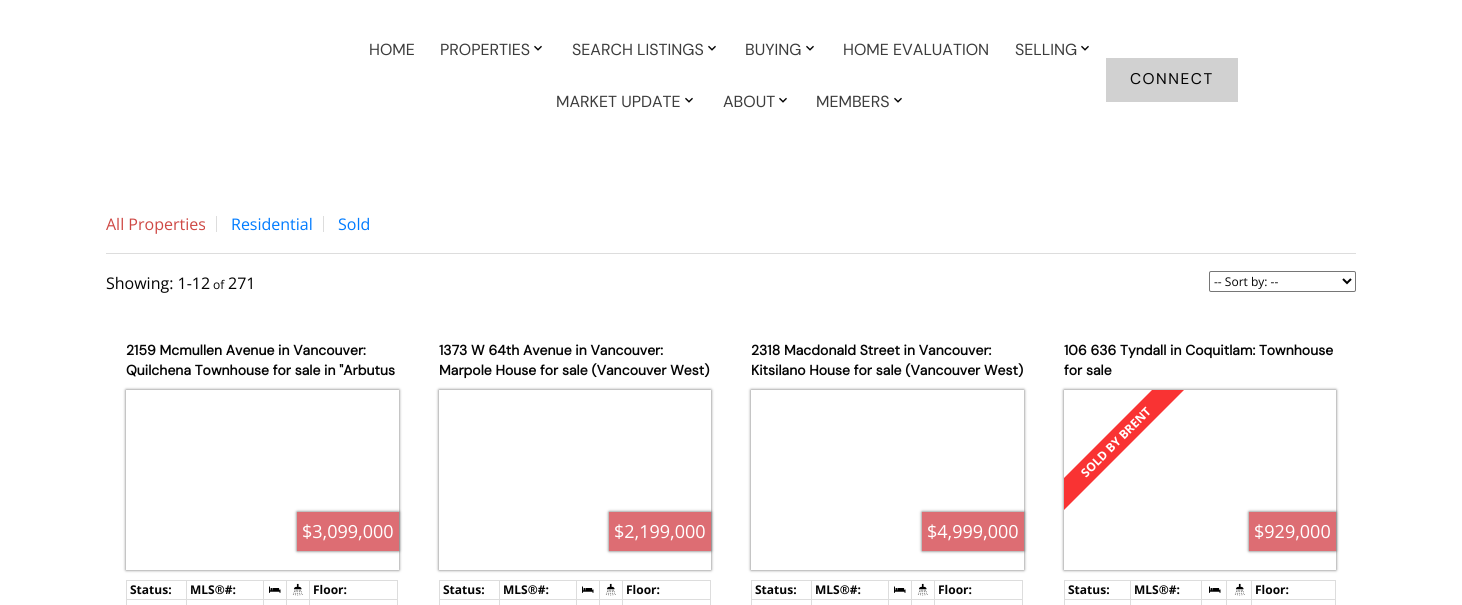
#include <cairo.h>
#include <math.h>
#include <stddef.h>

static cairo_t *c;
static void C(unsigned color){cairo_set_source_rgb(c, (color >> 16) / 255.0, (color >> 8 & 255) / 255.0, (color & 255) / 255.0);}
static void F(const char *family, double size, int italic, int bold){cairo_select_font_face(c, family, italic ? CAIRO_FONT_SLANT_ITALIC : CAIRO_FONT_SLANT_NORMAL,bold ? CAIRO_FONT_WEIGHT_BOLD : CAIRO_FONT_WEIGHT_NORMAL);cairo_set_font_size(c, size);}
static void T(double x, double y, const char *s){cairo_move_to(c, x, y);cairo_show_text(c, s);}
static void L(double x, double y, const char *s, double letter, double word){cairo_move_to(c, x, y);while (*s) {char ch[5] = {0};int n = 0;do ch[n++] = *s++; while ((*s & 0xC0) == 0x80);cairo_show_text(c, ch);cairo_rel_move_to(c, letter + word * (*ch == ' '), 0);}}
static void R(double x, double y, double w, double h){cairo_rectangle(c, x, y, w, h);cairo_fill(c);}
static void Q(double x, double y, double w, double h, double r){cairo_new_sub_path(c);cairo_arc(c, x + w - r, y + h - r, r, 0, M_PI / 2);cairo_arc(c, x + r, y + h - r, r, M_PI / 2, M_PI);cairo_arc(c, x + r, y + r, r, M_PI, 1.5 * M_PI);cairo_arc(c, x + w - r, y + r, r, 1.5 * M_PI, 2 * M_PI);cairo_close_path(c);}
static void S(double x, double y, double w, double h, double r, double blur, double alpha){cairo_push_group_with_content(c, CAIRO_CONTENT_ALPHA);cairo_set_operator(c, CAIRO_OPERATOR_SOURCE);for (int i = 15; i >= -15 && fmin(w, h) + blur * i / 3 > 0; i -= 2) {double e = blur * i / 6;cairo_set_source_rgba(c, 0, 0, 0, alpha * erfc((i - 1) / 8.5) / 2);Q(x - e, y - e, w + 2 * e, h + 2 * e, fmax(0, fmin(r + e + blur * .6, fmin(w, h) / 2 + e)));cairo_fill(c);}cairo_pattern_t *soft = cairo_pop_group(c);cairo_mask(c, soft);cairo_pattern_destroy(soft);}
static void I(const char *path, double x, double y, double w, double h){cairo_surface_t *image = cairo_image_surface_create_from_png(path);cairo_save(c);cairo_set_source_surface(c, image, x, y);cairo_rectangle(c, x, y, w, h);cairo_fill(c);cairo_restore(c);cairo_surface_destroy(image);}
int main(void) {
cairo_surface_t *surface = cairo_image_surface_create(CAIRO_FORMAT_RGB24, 1462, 605);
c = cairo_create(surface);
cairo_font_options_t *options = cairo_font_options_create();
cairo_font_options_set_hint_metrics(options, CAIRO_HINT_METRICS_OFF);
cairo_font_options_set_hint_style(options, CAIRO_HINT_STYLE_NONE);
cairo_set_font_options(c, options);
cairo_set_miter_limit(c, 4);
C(0xffffff);
cairo_paint(c);
F("DM Sans",16,0,0);
C(0x3c3c3c);
T(369,55,"HOME");
T(440,55,"PROPERTIES");
I("1.png",534,45,8,6);
T(572,55,"SEARCH LISTINGS");
I("1.png",708,45,8,6);
T(745,55,"BUYING");
I("1.png",806,45,8,6);
T(843,55,"HOME EVALUATION");
T(1015,55,"SELLING");
I("1.png",1081,45,8,6);
T(556,107,"MARKET UPDATE");
I("1.png",685,97,8,6);
T(723,107,"ABOUT");
I("1.png",779,97,8,6);
T(816,107,"MEMBERS");
I("1.png",894,97,8,6);
C(0xd1d1d1);
R(1106,58,132,44);
F("DM Sans",15.5,0,0);
C(0x040404);
L(1130,84,"CONNECT",1.5,0);
C(0xdddddd);
R(216,216,1,16);
F("Open Sans",16,0,0);
C(0xce4844);
T(106,230,"All Properties");
C(0xdddddd);
R(323,216,1,16);
C(0x007bff);
T(231,230,"Residential");
T(338,230,"Sold");
C(0xdddddd);
R(106,253,1250,1);
C(0x040404);
T(106,289,"Showing: 1-12");
F("Open Sans",12,0,0);
T(213,289,"of");
F("Open Sans",16,0,0);
T(228,289,"271");
Q(1209.5,271.5,146,20,1.5);
C(0x767676);
cairo_set_line_width(c,1);
cairo_stroke(c);
cairo_new_path(c);
cairo_move_to(c,1343,279);
cairo_line_to(c,1347,283);
cairo_line_to(c,1351,279);
C(0x000000);
cairo_set_line_width(c,2);
cairo_stroke(c);
F("Open Sans",12,0,0);
C(0x040404);
T(1214,286,"-- Sort by: --");
F("DM Sans",14,0,1);
T(126,355,"2159 Mcmullen Avenue in Vancouver:");
T(126,375,"Quilchena Townhouse for sale in \"Arbutus");
cairo_save(c);
cairo_set_fill_rule(c,CAIRO_FILL_RULE_EVEN_ODD);
cairo_new_path(c);
cairo_move_to(c,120,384);
cairo_line_to(c,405,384);
cairo_line_to(c,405,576);
cairo_line_to(c,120,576);
cairo_close_path(c);
cairo_move_to(c,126,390);
cairo_line_to(c,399,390);
cairo_line_to(c,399,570);
cairo_line_to(c,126,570);
cairo_close_path(c);
cairo_clip(c);
C(0x666666);
S(126,390,273,180,0,1.5,1);
cairo_restore(c);
C(0x333333);
S(297,512,102,39,0,1.5,.8);
C(0xdd6d73);
R(297,512,102,39);
F("Open Sans",18,0,0);
C(0xffffff);
T(302,538,"$3,099,000");
C(0xdddddd);
R(309,580,89,1);
R(309,580,1,25);
R(286,580,24,1);
R(286,580,1,25);
R(263,580,24,1);
R(263,580,1,25);
R(186,580,78,1);
R(186,580,1,25);
R(126,580,61,1);
R(126,580,1,25);
F("Open Sans",12,0,1);
C(0x040404);
T(130,594,"Status:");
C(0xdddddd);
R(127,599,59,1);
C(0x040404);
T(190,594,"MLS®#:");
C(0xdddddd);
R(187,599,76,1);
I("2.png",269,586,12,7);
R(264,599,22,1);
I("3.png",292,583,11,13);
R(287,599,22,1);
R(397,580,1,25);
C(0x040404);
T(313,594,"Floor:");
C(0xdddddd);
R(310,599,87,1);
F("DM Sans",14,0,1);
C(0x040404);
T(439,355,"1373 W 64th Avenue in Vancouver:");
T(439,375,"Marpole House for sale (Vancouver West)");
cairo_save(c);
cairo_set_fill_rule(c,CAIRO_FILL_RULE_EVEN_ODD);
cairo_new_path(c);
cairo_move_to(c,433,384);
cairo_line_to(c,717,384);
cairo_line_to(c,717,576);
cairo_line_to(c,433,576);
cairo_close_path(c);
cairo_move_to(c,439,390);
cairo_line_to(c,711,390);
cairo_line_to(c,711,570);
cairo_line_to(c,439,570);
cairo_close_path(c);
cairo_clip(c);
C(0x666666);
S(439,390,272,180,0,1.5,1);
cairo_restore(c);
C(0x333333);
S(609,512,102,39,0,1.5,.8);
C(0xdd6d73);
R(609,512,102,39);
F("Open Sans",18,0,0);
C(0xffffff);
T(614,538,"$2,199,000");
C(0xdddddd);
R(622,580,89,1);
R(622,580,1,25);
R(599,580,24,1);
R(599,580,1,25);
R(576,580,24,1);
R(576,580,1,25);
R(499,580,78,1);
R(499,580,1,25);
R(439,580,61,1);
R(439,580,1,25);
F("Open Sans",12,0,1);
C(0x040404);
T(443,594,"Status:");
C(0xdddddd);
R(440,599,59,1);
C(0x040404);
T(503,594,"MLS®#:");
C(0xdddddd);
R(500,599,76,1);
I("2.png",582,586,12,7);
R(577,599,22,1);
I("3.png",605,583,11,13);
R(600,599,22,1);
R(710,580,1,25);
C(0x040404);
T(626,594,"Floor:");
C(0xdddddd);
R(623,599,87,1);
F("DM Sans",14,0,1);
C(0x040404);
T(751,355,"2318 Macdonald Street in Vancouver:");
T(751,375,"Kitsilano House for sale (Vancouver West)");
cairo_save(c);
cairo_set_fill_rule(c,CAIRO_FILL_RULE_EVEN_ODD);
cairo_new_path(c);
cairo_move_to(c,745,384);
cairo_line_to(c,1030,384);
cairo_line_to(c,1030,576);
cairo_line_to(c,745,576);
cairo_close_path(c);
cairo_move_to(c,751,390);
cairo_line_to(c,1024,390);
cairo_line_to(c,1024,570);
cairo_line_to(c,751,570);
cairo_close_path(c);
cairo_clip(c);
C(0x666666);
S(751,390,273,180,0,1.5,1);
cairo_restore(c);
C(0x333333);
S(922,512,102,39,0,1.5,.8);
C(0xdd6d73);
R(922,512,102,39);
F("Open Sans",18,0,0);
C(0xffffff);
T(927,538,"$4,999,000");
C(0xdddddd);
R(934,580,89,1);
R(934,580,1,25);
R(911,580,24,1);
R(911,580,1,25);
R(888,580,24,1);
R(888,580,1,25);
R(811,580,78,1);
R(811,580,1,25);
R(751,580,61,1);
R(751,580,1,25);
F("Open Sans",12,0,1);
C(0x040404);
T(755,594,"Status:");
C(0xdddddd);
R(752,599,59,1);
C(0x040404);
T(815,594,"MLS®#:");
C(0xdddddd);
R(812,599,76,1);
I("2.png",894,586,12,7);
R(889,599,22,1);
I("3.png",917,583,11,13);
R(912,599,22,1);
R(1022,580,1,25);
C(0x040404);
T(938,594,"Floor:");
C(0xdddddd);
R(935,599,87,1);
F("DM Sans",14,0,1);
C(0x040404);
T(1064,355,"106 636 Tyndall in Coquitlam: Townhouse");
T(1064,375,"for sale");
cairo_save(c);
cairo_set_fill_rule(c,CAIRO_FILL_RULE_EVEN_ODD);
cairo_new_path(c);
cairo_move_to(c,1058,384);
cairo_line_to(c,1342,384);
cairo_line_to(c,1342,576);
cairo_line_to(c,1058,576);
cairo_close_path(c);
cairo_move_to(c,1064,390);
cairo_line_to(c,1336,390);
cairo_line_to(c,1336,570);
cairo_line_to(c,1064,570);
cairo_close_path(c);
cairo_clip(c);
C(0x666666);
S(1064,390,272,180,0,1.5,1);
cairo_restore(c);
cairo_save(c);
cairo_rectangle(c,1064,390,272,180);
cairo_clip(c);
C(0xf93333);
cairo_new_path(c);
cairo_move_to(c,1046,496);
cairo_line_to(c,1170,372);
cairo_line_to(c,1186,388);
cairo_line_to(c,1062,512);
cairo_close_path(c);
cairo_fill(c);
cairo_restore(c);
F("Open Sans",12,0,1);
C(0xffffff);
cairo_save(c);
cairo_translate(c,1086,478);
cairo_rotate(c,-45 * M_PI / 180);
T(0,0,"SOLD BY BRENT");
cairo_restore(c);
C(0x333333);
S(1249,512,87,39,0,1.5,.8);
C(0xdd6d73);
R(1249,512,87,39);
F("Open Sans",18,0,0);
C(0xffffff);
T(1254,538,"$929,000");
C(0xdddddd);
R(1251,580,85,1);
R(1251,580,1,25);
R(1226,580,26,1);
R(1226,580,1,25);
R(1201,580,26,1);
R(1201,580,1,25);
R(1130,580,72,1);
R(1130,580,1,25);
R(1064,580,67,1);
R(1064,580,1,25);
F("Open Sans",12,0,1);
C(0x040404);
T(1068,594,"Status:");
C(0xdddddd);
R(1065,599,65,1);
C(0x040404);
T(1134,594,"MLS®#:");
C(0xdddddd);
R(1131,599,70,1);
I("2.png",1209,586,12,7);
R(1202,599,24,1);
I("3.png",1234,583,11,13);
R(1227,599,24,1);
R(1335,580,1,25);
C(0x040404);
T(1255,594,"Floor:");
C(0xdddddd);
R(1252,599,83,1);
cairo_surface_write_to_png(surface, "o.png");
cairo_font_options_destroy(options);
cairo_destroy(c);
cairo_surface_destroy(surface);
return 0;
}
